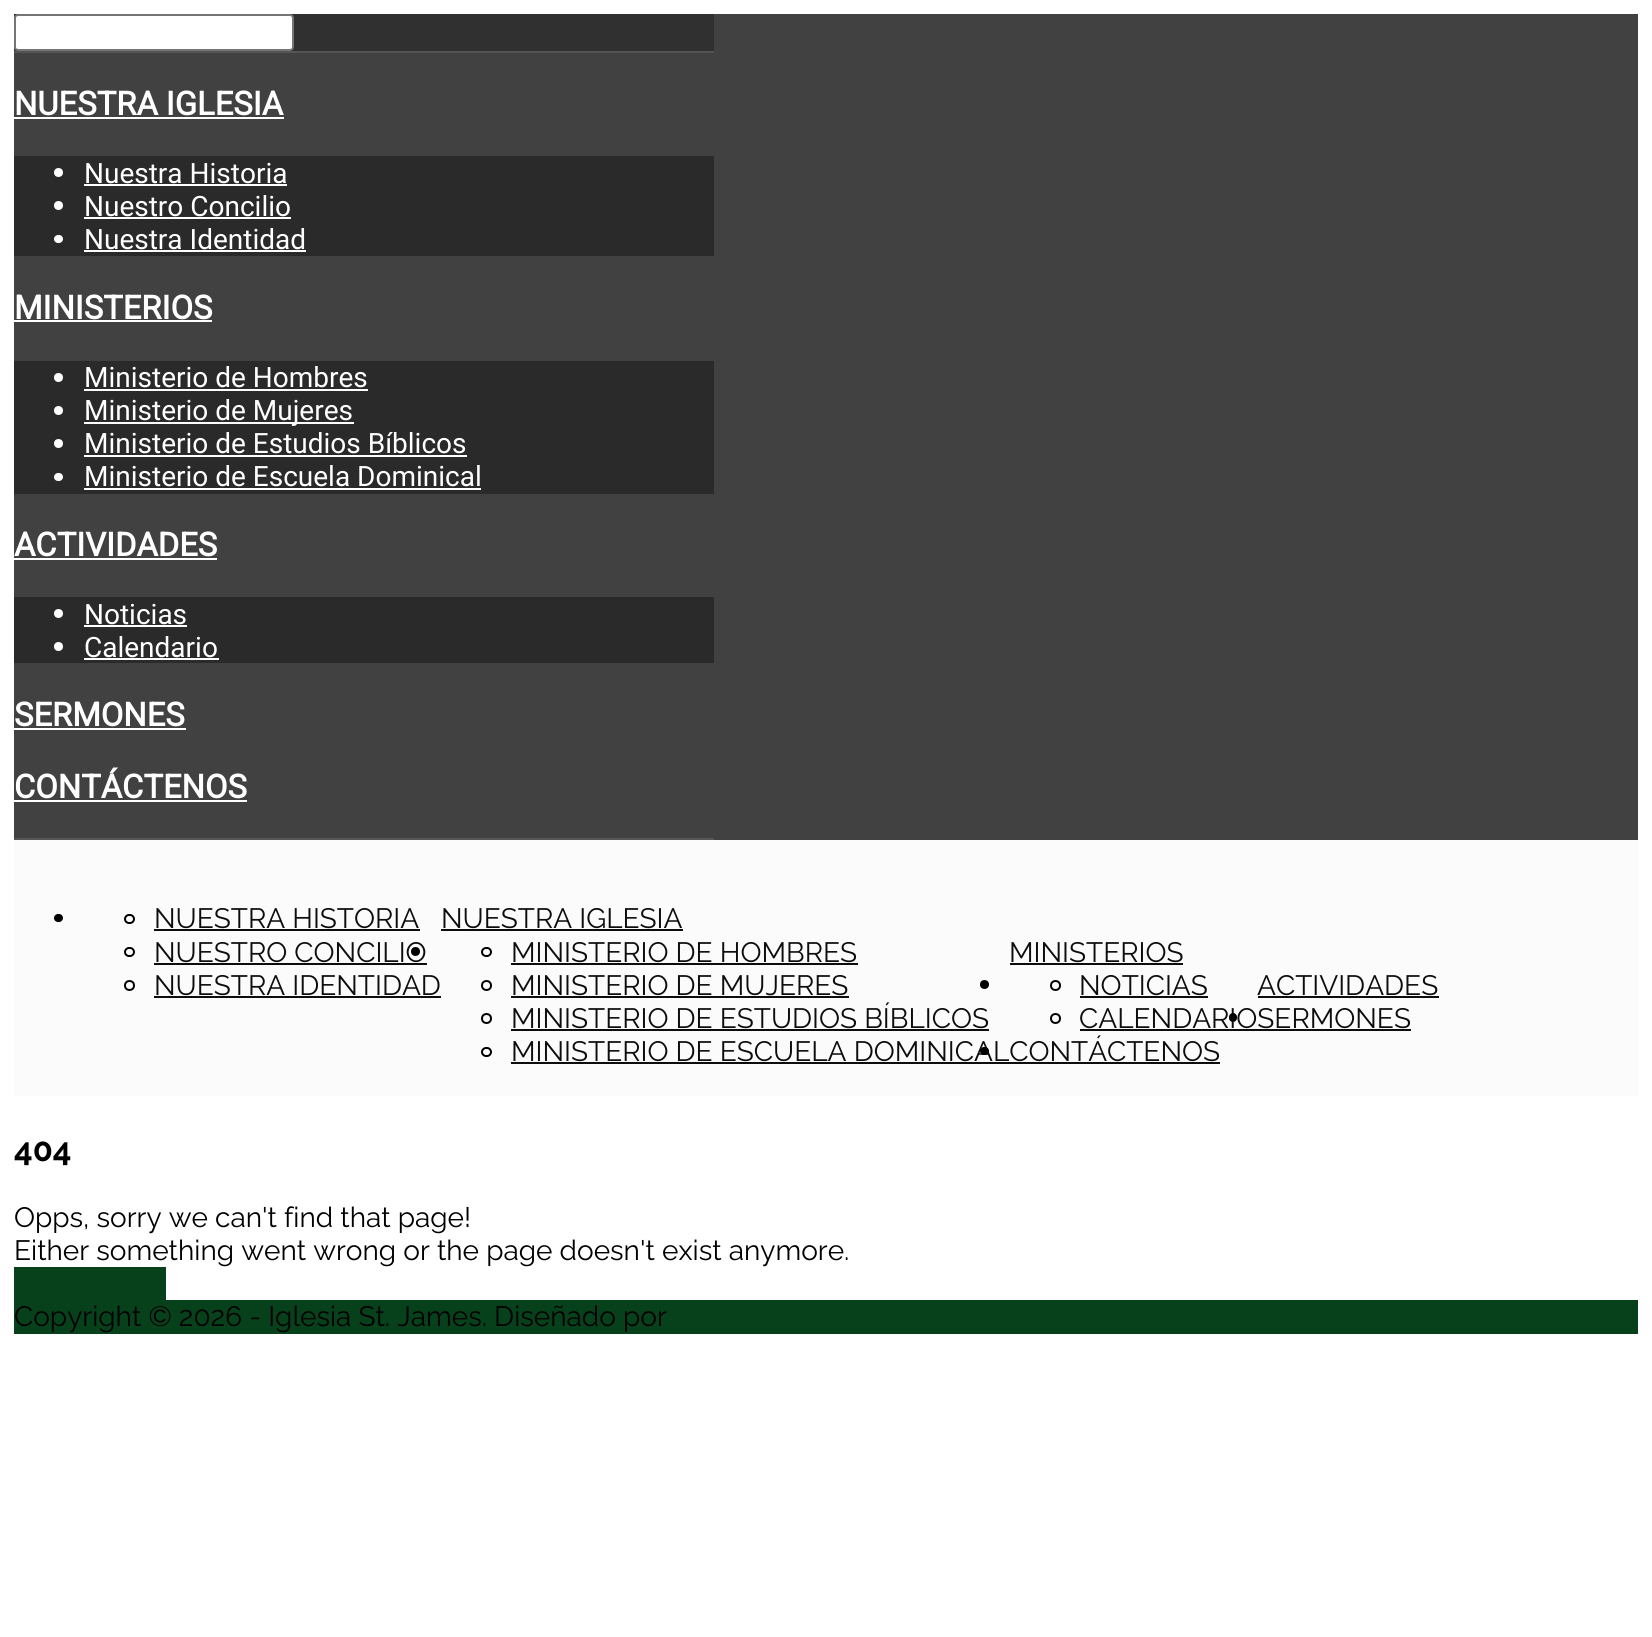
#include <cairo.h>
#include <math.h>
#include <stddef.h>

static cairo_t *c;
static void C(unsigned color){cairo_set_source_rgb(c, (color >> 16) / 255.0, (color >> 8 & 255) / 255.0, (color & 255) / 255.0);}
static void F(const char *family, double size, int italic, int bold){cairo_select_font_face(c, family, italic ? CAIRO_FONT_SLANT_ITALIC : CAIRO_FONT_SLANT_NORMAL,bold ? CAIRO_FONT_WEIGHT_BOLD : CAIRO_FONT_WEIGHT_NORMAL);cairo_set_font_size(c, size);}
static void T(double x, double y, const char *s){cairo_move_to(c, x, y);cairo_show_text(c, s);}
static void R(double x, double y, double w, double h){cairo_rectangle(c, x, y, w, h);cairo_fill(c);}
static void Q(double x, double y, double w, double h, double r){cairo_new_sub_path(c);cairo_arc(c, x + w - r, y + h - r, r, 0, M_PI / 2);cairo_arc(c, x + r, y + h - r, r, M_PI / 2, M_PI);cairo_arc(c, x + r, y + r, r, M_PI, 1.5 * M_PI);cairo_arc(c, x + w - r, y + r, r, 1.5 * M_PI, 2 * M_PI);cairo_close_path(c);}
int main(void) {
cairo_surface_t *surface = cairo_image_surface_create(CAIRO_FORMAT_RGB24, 1652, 1637);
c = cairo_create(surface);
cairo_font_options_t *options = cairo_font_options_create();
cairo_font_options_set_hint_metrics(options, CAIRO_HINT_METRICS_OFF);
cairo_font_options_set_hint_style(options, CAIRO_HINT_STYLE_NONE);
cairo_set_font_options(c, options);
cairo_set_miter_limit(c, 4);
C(0xffffff);
cairo_paint(c);
C(0x414141);
R(14,14,1624,826);
C(0x555555);
R(14,51,700,2);
C(0x303030);
R(14,14,700,37);
C(0xffffff);
Q(15,15,278,35,3);
cairo_fill_preserve(c);
C(0x767676);
cairo_stroke(c);
C(0x555555);
R(14,838,700,2);
F("Roboto",32.75,0,1);
C(0xffffff);
T(14,115,"NUESTRA IGLESIA");
R(14,117,270,2);
C(0x2a2a2a);
R(14,156,700,100);
C(0xffffff);
cairo_new_path(c);
cairo_arc(c,58.5,172.5,4.5,0,2 * M_PI);
cairo_fill(c);
F("Roboto",28,0,0);
T(84,183,"Nuestra Historia");
R(84,184,203,2);
cairo_new_path(c);
cairo_arc(c,58.5,205.5,4.5,0,2 * M_PI);
cairo_fill(c);
T(84,216,"Nuestro Concilio");
R(84,217,207,2);
Q(54,235,9,8,4);
cairo_fill(c);
T(84,249,"Nuestra Identidad");
R(84,250,222,2);
F("Roboto",32.75,0,1);
T(14,319,"MINISTERIOS");
R(14,320,198,2);
C(0x2a2a2a);
R(14,361,700,133);
C(0xffffff);
cairo_new_path(c);
cairo_arc(c,58.5,377.5,4.5,0,2 * M_PI);
cairo_fill(c);
F("Roboto",28,0,0);
T(84,387,"Ministerio de Hombres");
R(84,389,284,2);
cairo_new_path(c);
cairo_arc(c,58.5,410.5,4.5,0,2 * M_PI);
cairo_fill(c);
R(84,422,270,2);
T(84,420,"Ministerio de Mujeres");
cairo_new_path(c);
cairo_arc(c,58.5,443.5,4.5,0,2 * M_PI);
cairo_fill(c);
T(84,453,"Ministerio de Estudios Bíblicos");
R(84,455,383,2);
Q(54,473,9,8,4);
cairo_fill(c);
T(84,486,"Ministerio de Escuela Dominical");
R(84,488,397,2);
F("Roboto",32.75,0,1);
T(14,556,"ACTIVIDADES");
R(14,558,203,2);
C(0x2a2a2a);
R(14,597,700,66);
C(0xffffff);
cairo_new_path(c);
cairo_arc(c,58.5,613.5,4.5,0,2 * M_PI);
cairo_fill(c);
F("Roboto",28,0,0);
T(84,624,"Noticias");
R(84,625,103,2);
cairo_new_path(c);
cairo_arc(c,58.5,646.5,4.5,0,2 * M_PI);
cairo_fill(c);
T(84,657,"Calendario");
R(84,658,135,2);
F("Roboto",32.75,0,1);
T(14,726,"SERMONES");
R(14,728,172,2);
T(14,798,"CONTÁCTENOS");
R(14,800,233,2);
C(0xfbfbfb);
R(14,840,1624,256);
C(0x000000);
Q(54,914,9,8,4);
cairo_fill(c);
Q(125,915,9,8,4);
cairo_stroke(c);
F("Raleway",28,0,0);
C(0x0d0d0d);
T(154,928,"NUESTRA HISTORIA");
R(154,929,266,2);
Q(125,948,9,8,4);
C(0x000000);
cairo_stroke(c);
C(0x0d0d0d);
T(154,962,"NUESTRO CONCILIO");
R(154,963,273,2);
cairo_new_path(c);
cairo_arc(c,129.5,985.5,4.5,0,2 * M_PI);
C(0x000000);
cairo_stroke(c);
C(0x0d0d0d);
T(154,995,"NUESTRA IDENTIDAD");
R(154,996,287,2);
T(441,928,"NUESTRA IGLESIA");
R(441,929,242,2);
Q(482,948,9,8,4);
C(0x000000);
cairo_stroke(c);
C(0x0d0d0d);
T(511,962,"MINISTERIO DE HOMBRES");
R(511,963,347,2);
cairo_new_path(c);
cairo_arc(c,486.5,985.5,4.5,0,2 * M_PI);
C(0x000000);
cairo_stroke(c);
C(0x0d0d0d);
T(511,995,"MINISTERIO DE MUJERES");
R(511,996,338,2);
cairo_new_path(c);
cairo_arc(c,486.5,1018.5,4.5,0,2 * M_PI);
C(0x000000);
cairo_stroke(c);
C(0x0d0d0d);
T(511,1028,"MINISTERIO DE ESTUDIOS BÍBLICOS");
R(511,1029,478,2);
Q(482,1048,9,8,4);
C(0x000000);
cairo_stroke(c);
C(0x0d0d0d);
T(511,1061,"MINISTERIO DE ESCUELA DOMINICALCONTÁCTENOS");
R(511,1062,709,2);
C(0x000000);
cairo_new_path(c);
cairo_arc(c,415.5,951.5,4.5,0,2 * M_PI);
cairo_fill(c);
C(0x0d0d0d);
T(1009,962,"MINISTERIOS");
R(1010,963,173,2);
cairo_new_path(c);
cairo_arc(c,1055.5,985.5,4.5,0,2 * M_PI);
C(0x000000);
cairo_stroke(c);
C(0x0d0d0d);
T(1079,995,"NOTICIAS");
R(1080,996,128,2);
cairo_new_path(c);
cairo_arc(c,1055.5,1018.5,4.5,0,2 * M_PI);
C(0x000000);
cairo_stroke(c);
C(0x0d0d0d);
T(1079,1028,"CALENDARIOSERMONES");
R(1080,1029,331,2);
C(0x000000);
cairo_new_path(c);
cairo_arc(c,984.5,984.5,4.5,0,2 * M_PI);
cairo_fill(c);
C(0x0d0d0d);
T(1257,995,"ACTIVIDADES");
R(1258,996,181,2);
C(0x000000);
Q(1229,1013,8,9,4);
cairo_fill(c);
Q(980,1047,9,8,4);
cairo_fill(c);
F("Raleway",32.75,0,1);
T(14,1161,"404");
F("Raleway",28,0,0);
T(14,1227,"Opps, sorry we can't find that page!");
T(14,1260,"Either something went wrong or the page doesn't exist anymore.");
C(0x07411c);
R(14,1267,152,33);
R(14,1300,1624,34);
C(0x000000);
T(14,1326,"Copyright © 2026 - Iglesia St. James. Diseñado por");
cairo_surface_write_to_png(surface, "o.png");
cairo_font_options_destroy(options);
cairo_destroy(c);
cairo_surface_destroy(surface);
return 0;
}
